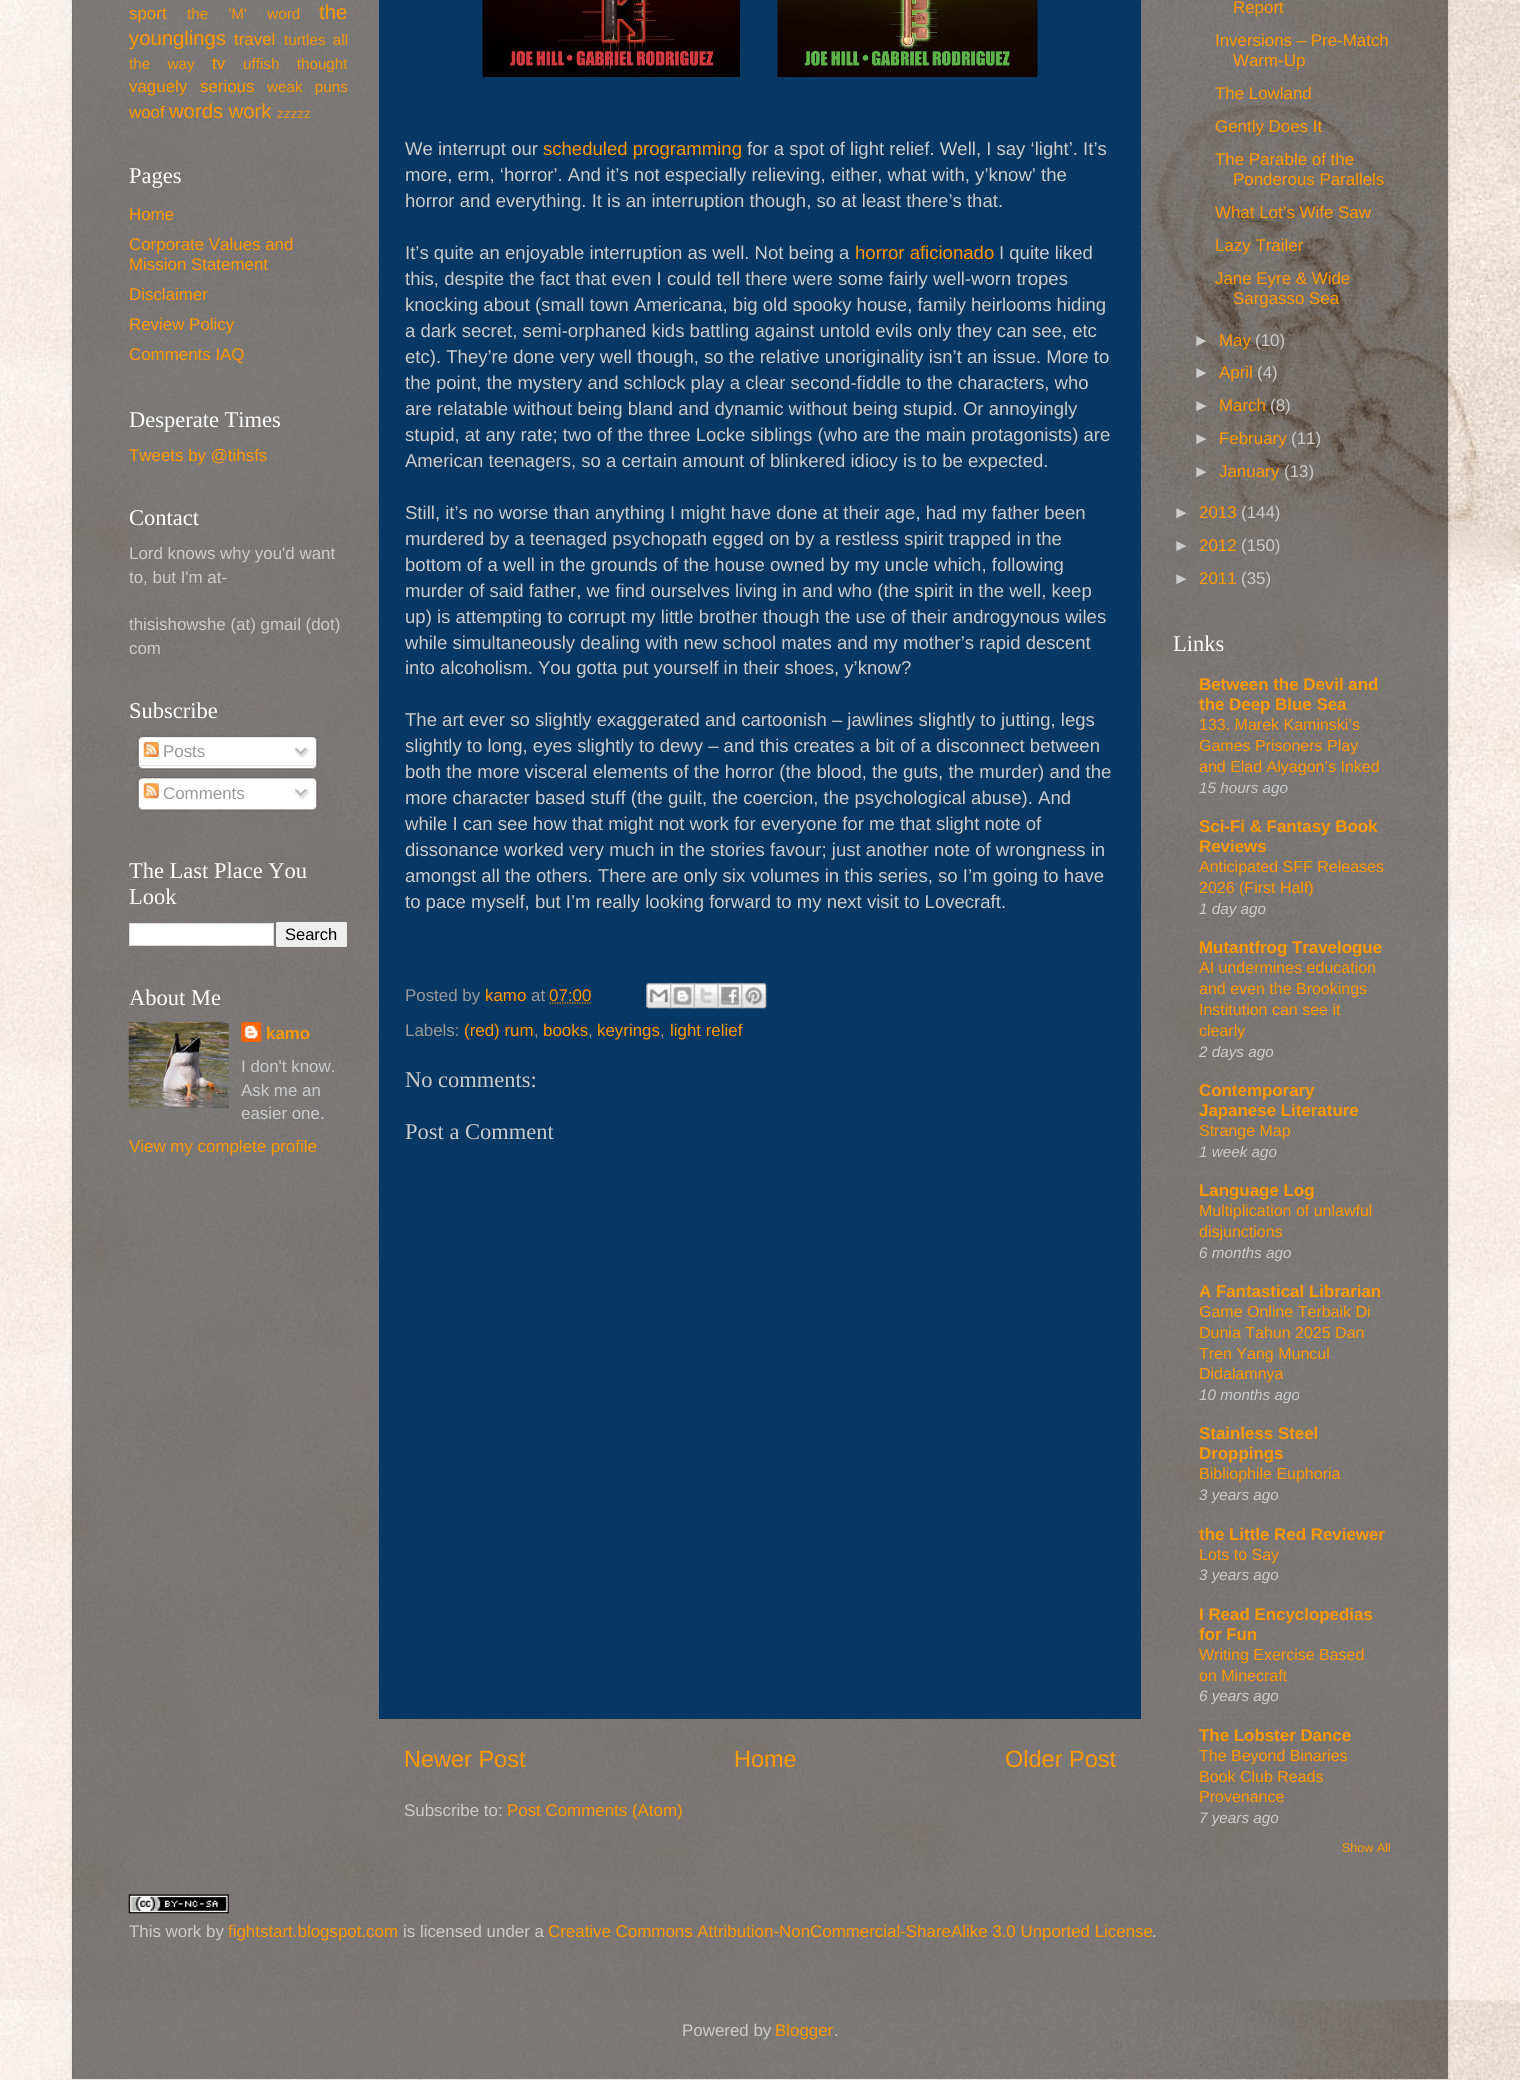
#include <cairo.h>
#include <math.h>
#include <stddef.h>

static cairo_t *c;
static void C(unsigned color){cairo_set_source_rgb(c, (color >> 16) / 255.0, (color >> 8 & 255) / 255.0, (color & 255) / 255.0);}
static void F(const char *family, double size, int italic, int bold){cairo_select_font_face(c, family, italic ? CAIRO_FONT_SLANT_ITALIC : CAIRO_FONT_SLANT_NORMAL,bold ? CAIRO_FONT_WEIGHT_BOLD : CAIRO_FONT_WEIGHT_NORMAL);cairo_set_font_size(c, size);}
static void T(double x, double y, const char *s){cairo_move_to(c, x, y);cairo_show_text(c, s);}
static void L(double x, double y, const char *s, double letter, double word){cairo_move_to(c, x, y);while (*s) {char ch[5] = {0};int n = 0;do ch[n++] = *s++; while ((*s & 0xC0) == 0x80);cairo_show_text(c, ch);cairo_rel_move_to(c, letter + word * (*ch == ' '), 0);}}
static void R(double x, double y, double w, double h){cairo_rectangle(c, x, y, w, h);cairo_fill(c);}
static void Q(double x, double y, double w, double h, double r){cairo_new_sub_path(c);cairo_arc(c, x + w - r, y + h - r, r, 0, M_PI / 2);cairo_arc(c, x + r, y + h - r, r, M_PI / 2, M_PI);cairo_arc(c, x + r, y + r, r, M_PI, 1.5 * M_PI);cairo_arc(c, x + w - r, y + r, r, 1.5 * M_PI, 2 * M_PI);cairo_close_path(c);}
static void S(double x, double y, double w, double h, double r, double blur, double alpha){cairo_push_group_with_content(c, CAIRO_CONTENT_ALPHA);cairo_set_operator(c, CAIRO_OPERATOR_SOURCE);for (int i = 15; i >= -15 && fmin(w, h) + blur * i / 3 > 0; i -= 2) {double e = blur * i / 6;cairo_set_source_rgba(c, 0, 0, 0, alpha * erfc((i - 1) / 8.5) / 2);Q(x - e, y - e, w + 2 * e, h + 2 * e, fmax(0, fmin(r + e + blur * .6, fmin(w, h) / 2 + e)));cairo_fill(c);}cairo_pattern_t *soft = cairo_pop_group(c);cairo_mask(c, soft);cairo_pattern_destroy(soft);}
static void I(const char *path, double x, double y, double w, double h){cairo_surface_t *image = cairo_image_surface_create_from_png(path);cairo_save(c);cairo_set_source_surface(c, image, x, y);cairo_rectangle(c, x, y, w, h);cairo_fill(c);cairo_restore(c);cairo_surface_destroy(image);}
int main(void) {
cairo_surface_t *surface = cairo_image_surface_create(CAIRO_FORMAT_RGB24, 1520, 2080);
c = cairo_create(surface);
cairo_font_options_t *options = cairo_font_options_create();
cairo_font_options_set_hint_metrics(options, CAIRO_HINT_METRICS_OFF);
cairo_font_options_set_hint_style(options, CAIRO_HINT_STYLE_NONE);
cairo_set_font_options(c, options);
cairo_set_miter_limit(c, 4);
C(0xffffff);
cairo_paint(c);
I("1.png",0,0,1520,2080);
cairo_save(c);
cairo_set_fill_rule(c,CAIRO_FILL_RULE_EVEN_ODD);
cairo_new_path(c);
cairo_move_to(c,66,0);
cairo_line_to(c,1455,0);
cairo_line_to(c,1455,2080);
cairo_line_to(c,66,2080);
cairo_close_path(c);
cairo_move_to(c,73,-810);
cairo_line_to(c,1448,-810);
cairo_line_to(c,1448,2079);
cairo_line_to(c,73,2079);
cairo_close_path(c);
cairo_clip(c);
C(0x000000);
S(73,-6,1375,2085,0,2,.15);
cairo_restore(c);
cairo_set_source_rgba(c,0,0,0,0.5);
R(72,0,1376,2079);
F("Liberation Sans",16.9,0,0);
C(0xff9900);
T(129,19,"sport");
F("Liberation Sans",15.25,0,0);
C(0xf2960c);
L(187,19,"the 'M' word",0,16);
F("Liberation Sans",20.25,0,0);
C(0xff9900);
T(319,19,"the");
T(129,45,"younglings");
F("Liberation Sans",16.9,0,0);
T(234,45,"travel");
F("Liberation Sans",15.25,0,0);
C(0xf2960c);
L(284,45,"turtles all",0,3);
L(129,69,"the way",0,13);
F("Liberation Sans",16.9,0,0);
C(0xff9900);
T(212,69,"tv");
F("Liberation Sans",15.25,0,0);
C(0xf2960c);
L(243,69,"uffish thought",0,13);
F("Liberation Sans",16.9,0,0);
C(0xff9900);
L(129,92,"vaguely serious",0,8);
F("Liberation Sans",15.25,0,0);
C(0xf2960c);
L(267,92,"weak puns",0,8);
F("Liberation Sans",16.9,0,0);
C(0xff9900);
T(129,118,"woof");
F("Liberation Sans",20.25,0,0);
T(169,118,"words work");
F("Liberation Sans",13.5,0,0);
C(0xe59318);
T(277,118,"zzzzz");
F("Liberation Serif",22.5,0,0);
C(0xffffff);
T(129,183,"Pages");
F("Liberation Sans",16.9,0,0);
C(0xff9900);
T(129,220,"Home");
cairo_new_path(c);
cairo_move_to(c,129,229.5);
cairo_line_to(c,347.5,229.5);
cairo_set_source_rgba(c,0.502,0.502,0.502,0.5);
cairo_set_line_width(c,1.2);
cairo_set_dash(c,(double[]){3.75,2.58},2,0);
cairo_stroke(c);
C(0xff9900);
T(129,250,"Corporate Values and");
T(129,270,"Mission Statement");
cairo_new_path(c);
cairo_move_to(c,129,280.5);
cairo_line_to(c,347.5,280.5);
cairo_set_source_rgba(c,0.502,0.502,0.502,0.5);
cairo_stroke(c);
C(0xff9900);
T(129,300,"Disclaimer");
cairo_new_path(c);
cairo_move_to(c,129,310.5);
cairo_line_to(c,347.5,310.5);
cairo_set_source_rgba(c,0.502,0.502,0.502,0.5);
cairo_stroke(c);
C(0xff9900);
T(129,330,"Review Policy");
cairo_new_path(c);
cairo_move_to(c,129,339.5);
cairo_line_to(c,347.5,339.5);
cairo_set_source_rgba(c,0.502,0.502,0.502,0.5);
cairo_stroke(c);
C(0xff9900);
T(129,360,"Comments IAQ");
F("Liberation Serif",22.5,0,0);
C(0xffffff);
T(129,427,"Desperate Times");
F("Liberation Sans",16.9,0,0);
C(0xff9900);
T(129,461,"Tweets by @tihsfs");
F("Liberation Serif",22.5,0,0);
C(0xffffff);
T(129,525,"Contact");
F("Liberation Sans",16.9,0,0);
C(0xcccccc);
T(129,559,"Lord knows why you'd want");
T(129,583,"to, but I'm at-");
T(129,630,"thisishowshe (at) gmail (dot)");
T(129,654,"com");
F("Liberation Serif",22.5,0,0);
C(0xffffff);
T(129,718,"Subscribe");
I("2.png",137,735,181,31);
I("3.png",143,742,16,15);
F("Liberation Sans",16.9,0,0);
C(0x999999);
T(163,757,"Posts");
I("4.png",294,747,16,11);
I("5.png",137,765,181,5);
I("6.png",137,777,181,30);
I("7.png",143,783,16,16);
T(163,799,"Comments");
I("8.png",294,788,16,12);
I("9.png",137,807,181,4);
F("Liberation Serif",22.5,0,0);
C(0xffffff);
T(129,878,"The Last Place You");
T(129,904,"Look");
cairo_rectangle(c,129.5,923.5,144,22);
cairo_fill_preserve(c);
C(0xdddddd);
cairo_set_line_width(c,1);
cairo_set_dash(c,NULL,0,0);
cairo_stroke(c);
C(0xefefef);
Q(275.5,921.5,72,26,2);
cairo_fill_preserve(c);
C(0x767676);
cairo_stroke(c);
F("Liberation Sans",16.5,0,0);
C(0x000000);
T(285,940,"Search");
F("Liberation Serif",22.5,0,0);
C(0xffffff);
T(129,1005,"About Me");
I("10.png",128,1022,101,87);
I("11.png",241,1022,21,20);
F("Liberation Sans",16.9,0,1);
C(0xff9900);
T(266,1039,"kamo");
F("Liberation Sans",16.9,0,0);
C(0xcccccc);
T(241,1072,"I don't know.");
T(241,1096,"Ask me an");
T(241,1119,"easier one.");
C(0xff9900);
T(129,1152,"View my complete profile");
C(0x073763);
R(379,0,762,1719);
I("12.png",482,0,258,77);
I("13.png",777,0,261,77);
F("Liberation Sans",18.55,0,0);
C(0xcccccc);
T(405,155,"We interrupt our");
C(0xff9900);
T(543,155,"scheduled programming");
C(0xcccccc);
T(747,155,"for a spot of light relief. Well, I say ‘light’. It’s");
T(405,181,"more, erm, ‘horror’. And it’s not especially relieving, either, what with, y’know’ the");
T(405,207,"horror and everything. It is an interruption though, so at least there’s that.");
T(405,259,"It’s quite an enjoyable interruption as well. Not being a");
C(0xff9900);
T(855,259,"horror aficionado");
C(0xcccccc);
T(999,259,"I quite liked");
T(405,285,"this, despite the fact that even I could tell there were some fairly well-worn tropes");
T(405,311,"knocking about (small town Americana, big old spooky house, family heirlooms hiding");
T(405,337,"a dark secret, semi-orphaned kids battling against untold evils only they can see, etc");
T(405,363,"etc). They’re done very well though, so the relative unoriginality isn’t an issue. More to");
T(405,389,"the point, the mystery and schlock play a clear second-fiddle to the characters, who");
T(405,415,"are relatable without being bland and dynamic without being stupid. Or annoyingly");
T(405,441,"stupid, at any rate; two of the three Locke siblings (who are the main protagonists) are");
T(405,467,"American teenagers, so a certain amount of blinkered idiocy is to be expected.");
T(405,519,"Still, it’s no worse than anything I might have done at their age, had my father been");
T(405,545,"murdered by a teenaged psychopath egged on by a restless spirit trapped in the");
T(405,571,"bottom of a well in the grounds of the house owned by my uncle which, following");
T(405,597,"murder of said father, we find ourselves living in and who (the spirit in the well, keep");
T(405,623,"up) is attempting to corrupt my little brother though the use of their androgynous wiles");
T(405,649,"while simultaneously dealing with new school mates and my mother’s rapid descent");
T(405,674,"into alcoholism. You gotta put yourself in their shoes, y’know?");
T(405,726,"The art ever so slightly exaggerated and cartoonish – jawlines slightly to jutting, legs");
T(405,752,"slightly to long, eyes slightly to dewy – and this creates a bit of a disconnect between");
T(405,778,"both the more visceral elements of the horror (the blood, the guts, the murder) and the");
T(405,804,"more character based stuff (the guilt, the coercion, the psychological abuse). And");
T(405,830,"while I can see how that might not work for everyone for me that slight note of");
T(405,856,"dissonance worked very much in the stories favour; just another note of wrongness in");
T(405,882,"amongst all the others. There are only six volumes in this series, so I’m going to have");
T(405,908,"to pace myself, but I’m really looking forward to my next visit to Lovecraft.");
F("Liberation Sans",16.9,0,0);
C(0x999999);
T(405,1001,"Posted by");
C(0xff9900);
T(485,1001,"kamo");
C(0x999999);
T(531,1001,"at");
C(0xff9900);
T(549,1001,"07:00");
cairo_new_path(c);
cairo_move_to(c,549.5,1003);
cairo_line_to(c,591.5,1003);
cairo_set_line_width(c,1.2);
cairo_set_dash(c,(double[]){1.25,1.25},2,0);
cairo_stroke(c);
I("14.png",646,983,26,26);
I("15.png",670,983,25,26);
I("16.png",693,983,26,26);
I("17.png",717,983,26,26);
I("18.png",741,983,26,26);
C(0x999999);
T(405,1036,"Labels:");
C(0xff9900);
T(464,1036,"(red) rum");
C(0x999999);
T(534,1036,",");
C(0xff9900);
T(543,1036,"books");
C(0x999999);
T(588,1036,",");
C(0xff9900);
T(597,1036,"keyrings");
C(0x999999);
T(660,1036,",");
C(0xff9900);
T(670,1036,"light relief");
F("Liberation Serif",22.5,0,0);
C(0xcccccc);
T(405,1087,"No comments:");
T(405,1139,"Post a Comment");
F("Liberation Sans",23.5,0,0);
C(0xff9900);
T(404,1767,"Newer Post");
T(734,1767,"Home");
T(1005,1767,"Older Post");
F("Liberation Sans",16.9,0,0);
C(0xcccccc);
T(404,1816,"Subscribe to:");
C(0xff9900);
T(507,1816,"Post Comments (Atom)");
T(1233,13,"Report");
T(1215,46,"Inversions – Pre-Match");
T(1233,66,"Warm-Up");
T(1215,99,"The Lowland");
T(1215,132,"Gently Does It");
T(1215,165,"The Parable of the");
T(1233,185,"Ponderous Parallels");
T(1215,218,"What Lot’s Wife Saw");
T(1215,251,"Lazy Trailer");
T(1215,284,"Jane Eyre & Wide");
T(1233,304,"Sargasso Sea");
C(0xcccccc);
T(1193,346,"►");
C(0xff9900);
T(1219,346,"May");
C(0xcccccc);
T(1255,346,"(10)");
T(1193,378,"►");
C(0xff9900);
T(1219,378,"April");
C(0xcccccc);
T(1257,378,"(4)");
T(1193,411,"►");
C(0xff9900);
T(1219,411,"March");
C(0xcccccc);
T(1270,411,"(8)");
T(1193,444,"►");
C(0xff9900);
T(1219,444,"February");
C(0xcccccc);
T(1291,444,"(11)");
T(1193,477,"►");
C(0xff9900);
T(1219,477,"January");
C(0xcccccc);
T(1284,477,"(13)");
T(1173,518,"►");
C(0xff9900);
T(1199,518,"2013");
C(0xcccccc);
T(1241,518,"(144)");
T(1173,551,"►");
C(0xff9900);
T(1199,551,"2012");
C(0xcccccc);
T(1241,551,"(150)");
T(1173,584,"►");
C(0xff9900);
T(1199,584,"2011");
C(0xcccccc);
T(1241,584,"(35)");
F("Liberation Serif",22.5,0,0);
C(0xffffff);
T(1173,651,"Links");
F("Liberation Sans",16.9,0,1);
C(0xff9900);
T(1199,690,"Between the Devil and");
T(1199,710,"the Deep Blue Sea");
F("Liberation Sans",16,0,0);
T(1199,730,"133. Marek Kaminski’s");
T(1199,751,"Games Prisoners Play");
T(1199,772,"and Elad Alyagon’s Inked");
F("Liberation Sans",15.25,1,0);
C(0xcccccc);
T(1199,793,"15 hours ago");
cairo_new_path(c);
cairo_move_to(c,1172.5,809.5);
cairo_line_to(c,1391,809.5);
cairo_set_source_rgba(c,0.502,0.502,0.502,0.5);
cairo_set_dash(c,(double[]){3.75,2.58},2,0);
cairo_stroke(c);
F("Liberation Sans",16.9,0,1);
C(0xff9900);
T(1199,832,"Sci-Fi & Fantasy Book");
T(1199,852,"Reviews");
F("Liberation Sans",16,0,0);
T(1199,872,"Anticipated SFF Releases");
T(1199,893,"2026 (First Half)");
F("Liberation Sans",15.25,1,0);
C(0xcccccc);
T(1199,914,"1 day ago");
cairo_new_path(c);
cairo_move_to(c,1172.5,930.5);
cairo_line_to(c,1391,930.5);
cairo_set_source_rgba(c,0.502,0.502,0.502,0.5);
cairo_stroke(c);
F("Liberation Sans",16.9,0,1);
C(0xff9900);
T(1199,953,"Mutantfrog Travelogue");
F("Liberation Sans",16,0,0);
T(1199,973,"AI undermines education");
T(1199,994,"and even the Brookings");
T(1199,1015,"Institution can see it");
T(1199,1036,"clearly");
F("Liberation Sans",15.25,1,0);
C(0xcccccc);
T(1199,1057,"2 days ago");
cairo_new_path(c);
cairo_move_to(c,1172.5,1073);
cairo_line_to(c,1391,1073);
cairo_set_source_rgba(c,0.502,0.502,0.502,0.5);
cairo_stroke(c);
F("Liberation Sans",16.9,0,1);
C(0xff9900);
T(1199,1096,"Contemporary");
T(1199,1116,"Japanese Literature");
F("Liberation Sans",16,0,0);
T(1199,1136,"Strange Map");
F("Liberation Sans",15.25,1,0);
C(0xcccccc);
T(1199,1157,"1 week ago");
cairo_new_path(c);
cairo_move_to(c,1172.5,1173);
cairo_line_to(c,1391,1173);
cairo_set_source_rgba(c,0.502,0.502,0.502,0.5);
cairo_stroke(c);
F("Liberation Sans",16.9,0,1);
C(0xff9900);
T(1199,1196,"Language Log");
F("Liberation Sans",16,0,0);
T(1199,1216,"Multiplication of unlawful");
T(1199,1237,"disjunctions");
F("Liberation Sans",15.25,1,0);
C(0xcccccc);
T(1199,1258,"6 months ago");
cairo_new_path(c);
cairo_move_to(c,1172.5,1274.5);
cairo_line_to(c,1391,1274.5);
cairo_set_source_rgba(c,0.502,0.502,0.502,0.5);
cairo_stroke(c);
F("Liberation Sans",16.9,0,1);
C(0xff9900);
T(1199,1297,"A Fantastical Librarian");
F("Liberation Sans",16,0,0);
T(1199,1317,"Game Online Terbaik Di");
T(1199,1338,"Dunia Tahun 2025 Dan");
T(1199,1359,"Tren Yang Muncul");
T(1199,1379,"Didalamnya");
F("Liberation Sans",15.25,1,0);
C(0xcccccc);
T(1199,1400,"10 months ago");
cairo_new_path(c);
cairo_move_to(c,1172.5,1417);
cairo_line_to(c,1391,1417);
cairo_set_source_rgba(c,0.502,0.502,0.502,0.5);
cairo_stroke(c);
F("Liberation Sans",16.9,0,1);
C(0xff9900);
T(1199,1439,"Stainless Steel");
T(1199,1459,"Droppings");
F("Liberation Sans",16,0,0);
T(1199,1479,"Bibliophile Euphoria");
F("Liberation Sans",15.25,1,0);
C(0xcccccc);
T(1199,1500,"3 years ago");
cairo_new_path(c);
cairo_move_to(c,1172.5,1517);
cairo_line_to(c,1391,1517);
cairo_set_source_rgba(c,0.502,0.502,0.502,0.5);
cairo_stroke(c);
F("Liberation Sans",16.9,0,1);
C(0xff9900);
T(1199,1540,"the Little Red Reviewer");
F("Liberation Sans",16,0,0);
T(1199,1560,"Lots to Say");
F("Liberation Sans",15.25,1,0);
C(0xcccccc);
T(1199,1580,"3 years ago");
cairo_new_path(c);
cairo_move_to(c,1172.5,1597);
cairo_line_to(c,1391,1597);
cairo_set_source_rgba(c,0.502,0.502,0.502,0.5);
cairo_stroke(c);
F("Liberation Sans",16.9,0,1);
C(0xff9900);
T(1199,1620,"I Read Encyclopedias");
T(1199,1640,"for Fun");
F("Liberation Sans",16,0,0);
T(1199,1660,"Writing Exercise Based");
T(1199,1681,"on Minecraft");
F("Liberation Sans",15.25,1,0);
C(0xcccccc);
T(1199,1701,"6 years ago");
cairo_new_path(c);
cairo_move_to(c,1172.5,1718);
cairo_line_to(c,1391,1718);
cairo_set_source_rgba(c,0.502,0.502,0.502,0.5);
cairo_stroke(c);
F("Liberation Sans",16.9,0,1);
C(0xff9900);
T(1199,1741,"The Lobster Dance");
F("Liberation Sans",16,0,0);
T(1199,1761,"The Beyond Binaries");
T(1199,1782,"Book Club Reads");
T(1199,1802,"Provenance");
F("Liberation Sans",15.25,1,0);
C(0xcccccc);
T(1199,1823,"7 years ago");
F("Liberation Sans",12.5,0,0);
C(0xff9900);
T(1342,1852,"Show All");
I("19.png",128,1894,101,20);
F("Liberation Sans",16.9,0,0);
C(0xcccccc);
T(129,1937,"This work by");
C(0xff9900);
T(228,1937,"fightstart.blogspot.com");
C(0xcccccc);
T(403,1937,"is licensed under a");
C(0xff9900);
T(548,1937,"Creative Commons Attribution-NonCommercial-ShareAlike 3.0 Unported License");
C(0xcccccc);
T(1152,1937,".");
T(682,2036,"Powered by");
C(0xff9900);
T(775,2036,"Blogger");
C(0xcccccc);
T(834,2036,".");
cairo_surface_write_to_png(surface, "o.png");
cairo_font_options_destroy(options);
cairo_destroy(c);
cairo_surface_destroy(surface);
return 0;
}
